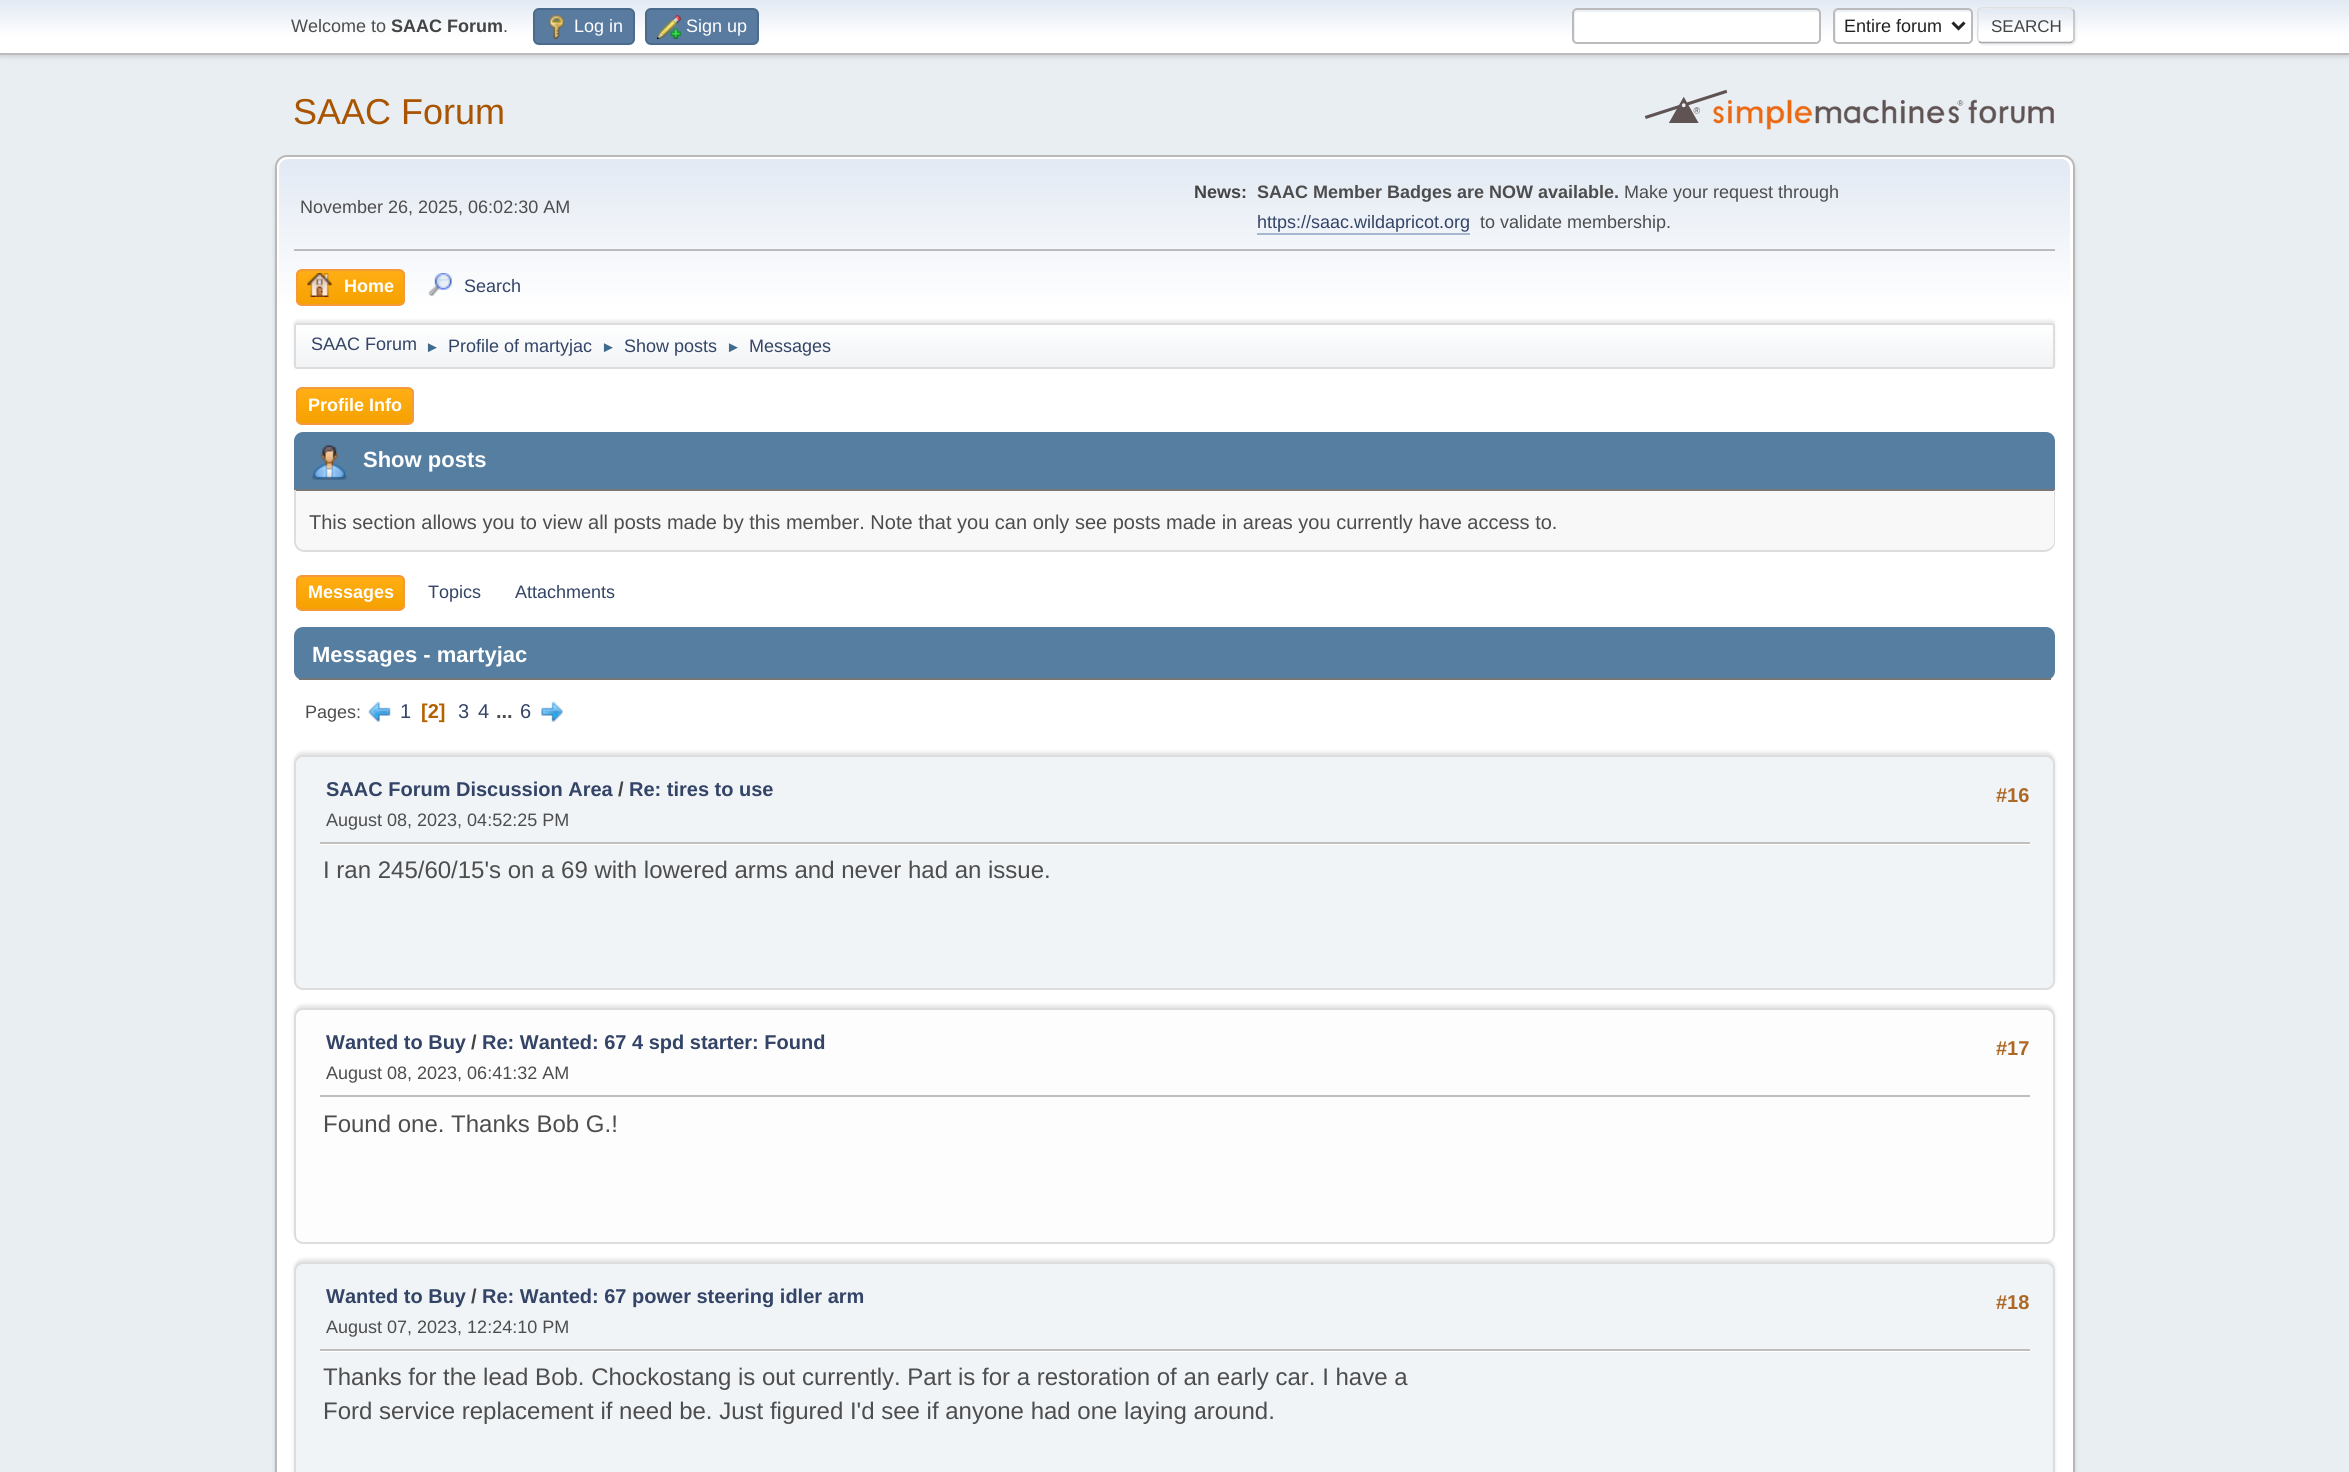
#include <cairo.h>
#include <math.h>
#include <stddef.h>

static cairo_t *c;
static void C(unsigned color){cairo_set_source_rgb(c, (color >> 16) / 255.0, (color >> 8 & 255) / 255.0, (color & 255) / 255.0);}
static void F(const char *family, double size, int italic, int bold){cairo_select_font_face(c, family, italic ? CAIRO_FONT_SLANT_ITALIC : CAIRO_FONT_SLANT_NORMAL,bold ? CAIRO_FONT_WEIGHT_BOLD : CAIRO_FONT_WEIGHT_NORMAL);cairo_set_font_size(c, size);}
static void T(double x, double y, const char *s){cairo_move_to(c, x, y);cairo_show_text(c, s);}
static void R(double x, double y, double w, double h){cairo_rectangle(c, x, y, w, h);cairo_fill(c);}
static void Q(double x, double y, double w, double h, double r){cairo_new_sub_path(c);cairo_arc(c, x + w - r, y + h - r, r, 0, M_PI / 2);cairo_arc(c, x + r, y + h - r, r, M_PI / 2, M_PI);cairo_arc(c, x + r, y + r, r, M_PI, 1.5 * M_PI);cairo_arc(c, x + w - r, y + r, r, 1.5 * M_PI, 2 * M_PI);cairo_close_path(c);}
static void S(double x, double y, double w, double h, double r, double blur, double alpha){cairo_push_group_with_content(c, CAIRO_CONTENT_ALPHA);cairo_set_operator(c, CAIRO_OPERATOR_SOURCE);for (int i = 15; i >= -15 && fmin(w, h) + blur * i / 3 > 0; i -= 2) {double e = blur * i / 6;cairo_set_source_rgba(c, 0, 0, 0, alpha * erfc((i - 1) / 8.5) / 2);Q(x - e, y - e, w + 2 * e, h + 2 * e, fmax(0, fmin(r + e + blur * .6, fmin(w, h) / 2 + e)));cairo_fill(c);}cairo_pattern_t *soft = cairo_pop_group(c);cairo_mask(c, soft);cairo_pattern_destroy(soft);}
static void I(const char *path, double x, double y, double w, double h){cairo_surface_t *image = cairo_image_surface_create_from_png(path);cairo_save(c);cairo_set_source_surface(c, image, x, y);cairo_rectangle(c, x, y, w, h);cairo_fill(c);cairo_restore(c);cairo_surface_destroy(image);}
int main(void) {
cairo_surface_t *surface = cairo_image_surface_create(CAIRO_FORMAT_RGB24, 2349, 1472);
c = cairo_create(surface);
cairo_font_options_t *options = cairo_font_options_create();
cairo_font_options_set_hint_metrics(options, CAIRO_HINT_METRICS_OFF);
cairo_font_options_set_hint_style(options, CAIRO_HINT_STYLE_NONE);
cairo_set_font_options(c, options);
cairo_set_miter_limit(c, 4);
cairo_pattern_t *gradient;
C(0xe9eef2);
cairo_paint(c);
C(0x000000);
S(0,2,2349,54,0,3,.16);
gradient = cairo_pattern_create_linear(1175,0,1175,53);
cairo_pattern_add_color_stop_rgba(gradient,0,0.886,0.914,0.953,1);
cairo_pattern_add_color_stop_rgba(gradient,.7,1,1,1,1);
cairo_set_source(c,gradient);
cairo_pattern_destroy(gradient);
R(0,0,2349,53);
C(0xbbbbbb);
R(0,53,2349,2);
F("Liberation Sans",18,0,0);
C(0x4d4d4d);
T(291,32,"Welcome to");
F("Liberation Sans",18,0,1);
C(0x444444);
T(391,32,"SAAC Forum");
F("Liberation Sans",18,0,0);
C(0x4d4d4d);
T(503,32,".");
C(0x597b9f);
Q(534,9,100,35,5);
cairo_fill_preserve(c);
C(0x4a6b8c);
cairo_stroke(c);
I("1.png",548,15,17,24);
C(0xffffff);
T(574,32,"Log in");
C(0x597b9f);
Q(646,9,112,35,5);
cairo_fill_preserve(c);
C(0x4a6b8c);
cairo_stroke(c);
I("2.png",657,15,24,24);
C(0xffffff);
T(686,32,"Sign up");
Q(1572,8,249,36,5);
cairo_fill(c);
C(0xecf1f8);
cairo_new_path(c);
cairo_move_to(c,1578,12);
cairo_line_to(c,1818,12);
cairo_line_to(c,1820,13);
cairo_line_to(c,1820,12);
cairo_curve_to(c,1820,10,1819,9,1817,9);
cairo_line_to(c,1577,9);
cairo_curve_to(c,1575,9,1574,10,1574,12);
cairo_line_to(c,1574,39);
cairo_curve_to(c,1574,40,1574,41,1575,41);
cairo_line_to(c,1575,15);
cairo_curve_to(c,1575,13,1576,12,1578,12);
cairo_close_path(c);
cairo_fill(c);
Q(1573,9,247,34,4);
C(0xbbbbbb);
cairo_stroke(c);
C(0xffffff);
Q(1833,8,140,36,5);
cairo_fill(c);
C(0xecf1f8);
cairo_new_path(c);
cairo_move_to(c,1839,12);
cairo_curve_to(c,1851,12,1970,11,1971,12);
cairo_curve_to(c,1971,10,1970,9,1968,9);
cairo_line_to(c,1838,9);
cairo_curve_to(c,1836,9,1835,10,1835,12);
cairo_line_to(c,1835,39);
cairo_curve_to(c,1835,40,1835,41,1836,41);
cairo_line_to(c,1836,15);
cairo_curve_to(c,1836,13,1837,12,1839,12);
cairo_close_path(c);
cairo_fill(c);
Q(1834,9,138,34,4);
C(0xbbbbbb);
cairo_stroke(c);
cairo_new_path(c);
cairo_move_to(c,1952.5,22.5);
cairo_line_to(c,1958.5,28.5);
cairo_line_to(c,1964.5,22.5);
C(0x222222);
cairo_set_line_width(c,3);
cairo_stroke(c);
T(1844,32,"Entire forum");
C(0xdddddd);
S(1979,9,97,36,5,1,.57);
cairo_save(c);
Q(1977,8,98,36,5);
cairo_clip(c);
gradient = cairo_pattern_create_linear(2026,-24,2026,9);
cairo_pattern_add_color_stop_rgba(gradient,0,0.886,0.914,0.953,1);
cairo_pattern_add_color_stop_rgba(gradient,.7,1,1,1,1);
cairo_set_source(c,gradient);
cairo_pattern_destroy(gradient);
R(1977,8,98,1);
gradient = cairo_pattern_create_linear(2026,9,2026,42);
cairo_pattern_add_color_stop_rgba(gradient,0,0.886,0.914,0.953,1);
cairo_pattern_add_color_stop_rgba(gradient,.7,1,1,1,1);
cairo_set_source(c,gradient);
cairo_pattern_destroy(gradient);
R(1977,9,98,33);
gradient = cairo_pattern_create_linear(2026,42,2026,75);
cairo_pattern_add_color_stop_rgba(gradient,0,0.886,0.914,0.953,1);
cairo_pattern_add_color_stop_rgba(gradient,.7,1,1,1,1);
cairo_set_source(c,gradient);
cairo_pattern_destroy(gradient);
R(1977,42,98,2);
cairo_restore(c);
cairo_new_path(c);
cairo_move_to(c,2072.5,9.5);
cairo_curve_to(c,2073.5,10,2074,11,2074,12);
cairo_line_to(c,2074,39);
cairo_curve_to(c,2074,40,2073.5,41,2072.5,41.5);
C(0xbbbbbb);
cairo_set_line_width(c,1.5);
cairo_stroke(c);
cairo_new_path(c);
cairo_move_to(c,2072.5,41.5);
cairo_line_to(c,2070.5,42.5);
cairo_line_to(c,1981,42.5);
cairo_line_to(c,1979,41.5);
C(0xaaaaaa);
cairo_stroke(c);
cairo_new_path(c);
cairo_move_to(c,1979,41.5);
cairo_curve_to(c,1976.5,39.5,1978,28.5,1978,25.5);
cairo_curve_to(c,1978,5,1974.5,8,1996,8);
cairo_line_to(c,2070,8);
cairo_line_to(c,2072.5,9.5);
C(0xdddddd);
cairo_stroke(c);
F("Liberation Sans",17,0,0);
C(0x444444);
T(1991,32,"SEARCH");
F("Liberation Sans",36,0,0);
C(0xa85400);
T(293,124,"SAAC Forum");
I("3.png",1644,89,410,41);
C(0x000000);
S(275,158,1800,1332,12,2,.14);
C(0xffffff);
Q(276,156,1798,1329,11);
cairo_fill_preserve(c);
C(0xb8b8b8);
cairo_set_line_width(c,2);
cairo_stroke(c);
gradient = cairo_pattern_create_linear(1175,159,1175,372);
cairo_pattern_add_color_stop_rgba(gradient,0,0.886,0.914,0.953,1);
cairo_pattern_add_color_stop_rgba(gradient,.7,1,1,1,1);
cairo_set_source(c,gradient);
cairo_pattern_destroy(gradient);
cairo_new_path(c);
cairo_move_to(c,288,159);
cairo_line_to(c,2061,159);
cairo_curve_to(c,2066,159,2070,163,2070,168);
cairo_line_to(c,2070,372);
cairo_line_to(c,279,372);
cairo_line_to(c,279,168);
cairo_curve_to(c,279,163,283,159,288,159);
cairo_close_path(c);
cairo_fill(c);
C(0xbbbbbb);
R(294,249,1761,2);
F("Liberation Sans",18,0,0);
C(0x4d4d4d);
T(300,213,"November 26, 2025, 06:02:30 AM");
F("Liberation Sans",18,0,1);
C(0x444444);
T(1194,198,"News:");
C(0x4d4d4d);
T(1257,198,"SAAC Member Badges are NOW available.");
F("Liberation Sans",18,0,0);
T(1624,198,"Make your request through");
C(0x334466);
T(1257,228,"https://saac.wildapricot.org");
C(0xa8b6cf);
R(1257,233,213,2);
C(0x4d4d4d);
T(1480,228,"to validate membership.");
cairo_save(c);
Q(296,269,109,37,6);
cairo_clip(c);
gradient = cairo_pattern_create_linear(350,270,350,305);
cairo_pattern_add_color_stop_rgba(gradient,0,1,0.682,0.078,1);
cairo_pattern_add_color_stop_rgba(gradient,1,0.961,0.631,0,1);
cairo_set_source(c,gradient);
cairo_pattern_destroy(gradient);
R(296,270,109,35);
cairo_restore(c);
Q(297,270,107,35,5);
C(0xf49a3a);
cairo_stroke(c);
I("4.png",307,273,25,24);
F("Liberation Sans",18,0,1);
C(0xffffff);
T(344,292,"Home");
I("5.png",428,273,24,23);
F("Liberation Sans",18,0,0);
C(0x334466);
T(464,292,"Search");
C(0x000000);
S(294,320,1761,46,3,1.5,.08);
cairo_save(c);
Q(294,323,1761,46,3);
cairo_clip(c);
gradient = cairo_pattern_create_linear(1175,324,1175,368);
cairo_pattern_add_color_stop_rgba(gradient,0,1,1,1,1);
cairo_pattern_add_color_stop_rgba(gradient,.95,0.945,0.953,0.961,1);
cairo_set_source(c,gradient);
cairo_pattern_destroy(gradient);
R(294,324,1761,44);
cairo_restore(c);
Q(295,324,1759,44,2);
C(0xdddddd);
cairo_stroke(c);
C(0x334466);
T(311,350,"SAAC Forum");
F("Liberation Sans",15,0,0);
C(0x3f6b8c);
T(425,352,"►");
F("Liberation Sans",18,0,0);
C(0x334466);
T(448,352,"Profile of martyjac");
F("Liberation Sans",15,0,0);
C(0x3f6b8c);
T(601,352,"►");
F("Liberation Sans",18,0,0);
C(0x334466);
T(624,352,"Show posts");
F("Liberation Sans",15,0,0);
C(0x3f6b8c);
T(726,352,"►");
F("Liberation Sans",18,0,0);
C(0x334466);
T(749,352,"Messages");
cairo_save(c);
Q(296,387,118,38,6);
cairo_clip(c);
gradient = cairo_pattern_create_linear(355,389,355,423);
cairo_pattern_add_color_stop_rgba(gradient,0,1,0.682,0.078,1);
cairo_pattern_add_color_stop_rgba(gradient,1,0.961,0.631,0,1);
cairo_set_source(c,gradient);
cairo_pattern_destroy(gradient);
R(296,389,118,34);
cairo_restore(c);
Q(297,388,116,36,5);
C(0xf49a3a);
cairo_stroke(c);
F("Liberation Sans",18,0,1);
C(0xffffff);
T(308,411,"Profile Info");
C(0x557ea0);
cairo_new_path(c);
cairo_move_to(c,303,432);
cairo_line_to(c,2046,432);
cairo_curve_to(c,2051,432,2055,436,2055,441);
cairo_line_to(c,2055,491);
cairo_line_to(c,294,491);
cairo_line_to(c,294,441);
cairo_curve_to(c,294,436,298,432,303,432);
cairo_close_path(c);
cairo_fill(c);
C(0x777777);
R(294,489,1761,2);
I("6.png",312,445,35,35);
F("Liberation Sans",22,0,1);
C(0xffffff);
T(363,467,"Show posts");
C(0xf8f8f8);
cairo_new_path(c);
cairo_move_to(c,294,491);
cairo_line_to(c,2055,491);
cairo_line_to(c,2055,541);
cairo_curve_to(c,2055,547,2050,552,2044,552);
cairo_line_to(c,305,552);
cairo_curve_to(c,299,552,294,547,294,541);
cairo_close_path(c);
cairo_fill(c);
C(0xdddddd);
cairo_set_fill_rule(c,CAIRO_FILL_RULE_EVEN_ODD);
cairo_new_path(c);
cairo_move_to(c,294,490);
cairo_line_to(c,2055,490);
cairo_line_to(c,2055,542);
cairo_curve_to(c,2055,547,2050,552,2044,552);
cairo_line_to(c,304,552);
cairo_curve_to(c,299,552,294,547,294,542);
cairo_close_path(c);
cairo_move_to(c,296,490);
cairo_line_to(c,2054,490);
cairo_line_to(c,2054,542);
cairo_curve_to(c,2054,546,2049,550,2044,550);
cairo_line_to(c,304,550);
cairo_curve_to(c,300,550,296,546,296,542);
cairo_close_path(c);
cairo_fill(c);
F("Liberation Sans",20,0,0);
C(0x4d4d4d);
T(309,529,"This section allows you to view all posts made by this member. Note that you can only see posts made in areas you currently have access to.");
cairo_save(c);
cairo_set_fill_rule(c,CAIRO_FILL_RULE_WINDING);
Q(296,575,109,36,6);
cairo_clip(c);
gradient = cairo_pattern_create_linear(350,576,350,609);
cairo_pattern_add_color_stop_rgba(gradient,0,1,0.682,0.078,1);
cairo_pattern_add_color_stop_rgba(gradient,1,0.961,0.631,0,1);
cairo_set_source(c,gradient);
cairo_pattern_destroy(gradient);
R(296,576,109,33);
cairo_restore(c);
Q(297,576,107,34,5);
C(0xf49a3a);
cairo_stroke(c);
F("Liberation Sans",18,0,1);
C(0xffffff);
T(308,598,"Messages");
F("Liberation Sans",18,0,0);
C(0x334466);
T(428,598,"Topics");
T(515,598,"Attachments");
C(0x557ea0);
Q(294,627,1761,53,9);
cairo_fill(c);
C(0x777777);
R(299,678,1752,2);
F("Liberation Sans",22,0,1);
C(0xffffff);
T(312,662,"Messages - martyjac");
F("Liberation Sans",18,0,0);
C(0x4d4d4d);
T(305,718,"Pages:");
I("7.png",368,701,23,21);
F("Liberation Sans",20,0,0);
C(0x334466);
T(400,718,"1");
F("Liberation Sans",20,0,1);
C(0xb46100);
T(421,718,"[2]");
F("Liberation Sans",20,0,0);
C(0x334466);
T(458,718,"3");
T(478,718,"4");
F("Liberation Sans",20,0,1);
C(0x4d4d4d);
T(496,718,"...");
F("Liberation Sans",20,0,0);
C(0x334466);
T(520,718,"6");
I("8.png",541,701,22,21);
C(0x000000);
S(294,752,1761,235,9,1.5,.1);
C(0xf0f4f7);
Q(295,756,1759,233,8);
cairo_fill_preserve(c);
C(0xdddddd);
cairo_stroke(c);
F("Liberation Sans",20,0,1);
C(0x334466);
T(326,796,"SAAC Forum Discussion Area");
C(0x444444);
T(618,796,"/");
C(0x334466);
T(629,796,"Re: tires to use");
F("Liberation Sans",18,0,0);
C(0x4d4d4d);
T(326,826,"August 08, 2023, 04:52:25 PM");
F("Liberation Sans",20,0,1);
C(0xad6825);
T(1996,802,"#16");
C(0xffffff);
R(320,844,1710,1);
C(0xbfbfbf);
R(320,842,1710,2);
F("Liberation Sans",24,0,0);
C(0x4d4d4d);
T(323,878,"I ran 245/60/15's on a 69 with lowered arms and never had an issue.");
C(0x000000);
S(294,1005,1761,236,9,1.5,.1);
C(0xfdfdfd);
Q(295,1009,1759,234,8);
cairo_fill_preserve(c);
C(0xdddddd);
cairo_stroke(c);
F("Liberation Sans",20,0,1);
C(0x334466);
T(326,1049,"Wanted to Buy");
C(0x444444);
T(471,1049,"/");
C(0x334466);
T(482,1049,"Re: Wanted: 67 4 spd starter: Found");
F("Liberation Sans",18,0,0);
C(0x4d4d4d);
T(326,1079,"August 08, 2023, 06:41:32 AM");
F("Liberation Sans",20,0,1);
C(0xad6825);
T(1996,1055,"#17");
C(0xbfbfbf);
R(320,1095,1710,2);
F("Liberation Sans",24,0,0);
C(0x4d4d4d);
T(323,1132,"Found one. Thanks Bob G.!");
C(0x000000);
S(294,1259,1761,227,9,1.5,.1);
C(0xf0f4f7);
Q(295,1263,1759,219,8);
cairo_fill_preserve(c);
C(0xdddddd);
cairo_stroke(c);
F("Liberation Sans",20,0,1);
C(0x334466);
T(326,1303,"Wanted to Buy");
C(0x444444);
T(471,1303,"/");
C(0x334466);
T(482,1303,"Re: Wanted: 67 power steering idler arm");
F("Liberation Sans",18,0,0);
C(0x4d4d4d);
T(326,1333,"August 07, 2023, 12:24:10 PM");
F("Liberation Sans",20,0,1);
C(0xad6825);
T(1996,1309,"#18");
C(0xffffff);
R(320,1351,1710,1);
C(0xbfbfbf);
R(320,1349,1710,2);
F("Liberation Sans",24,0,0);
C(0x4d4d4d);
T(323,1385,"Thanks for the lead Bob. Chockostang is out currently. Part is for a restoration of an early car. I have a");
T(323,1419,"Ford service replacement if need be. Just figured I'd see if anyone had one laying around.");
cairo_surface_write_to_png(surface, "o.png");
cairo_font_options_destroy(options);
cairo_destroy(c);
cairo_surface_destroy(surface);
return 0;
}
